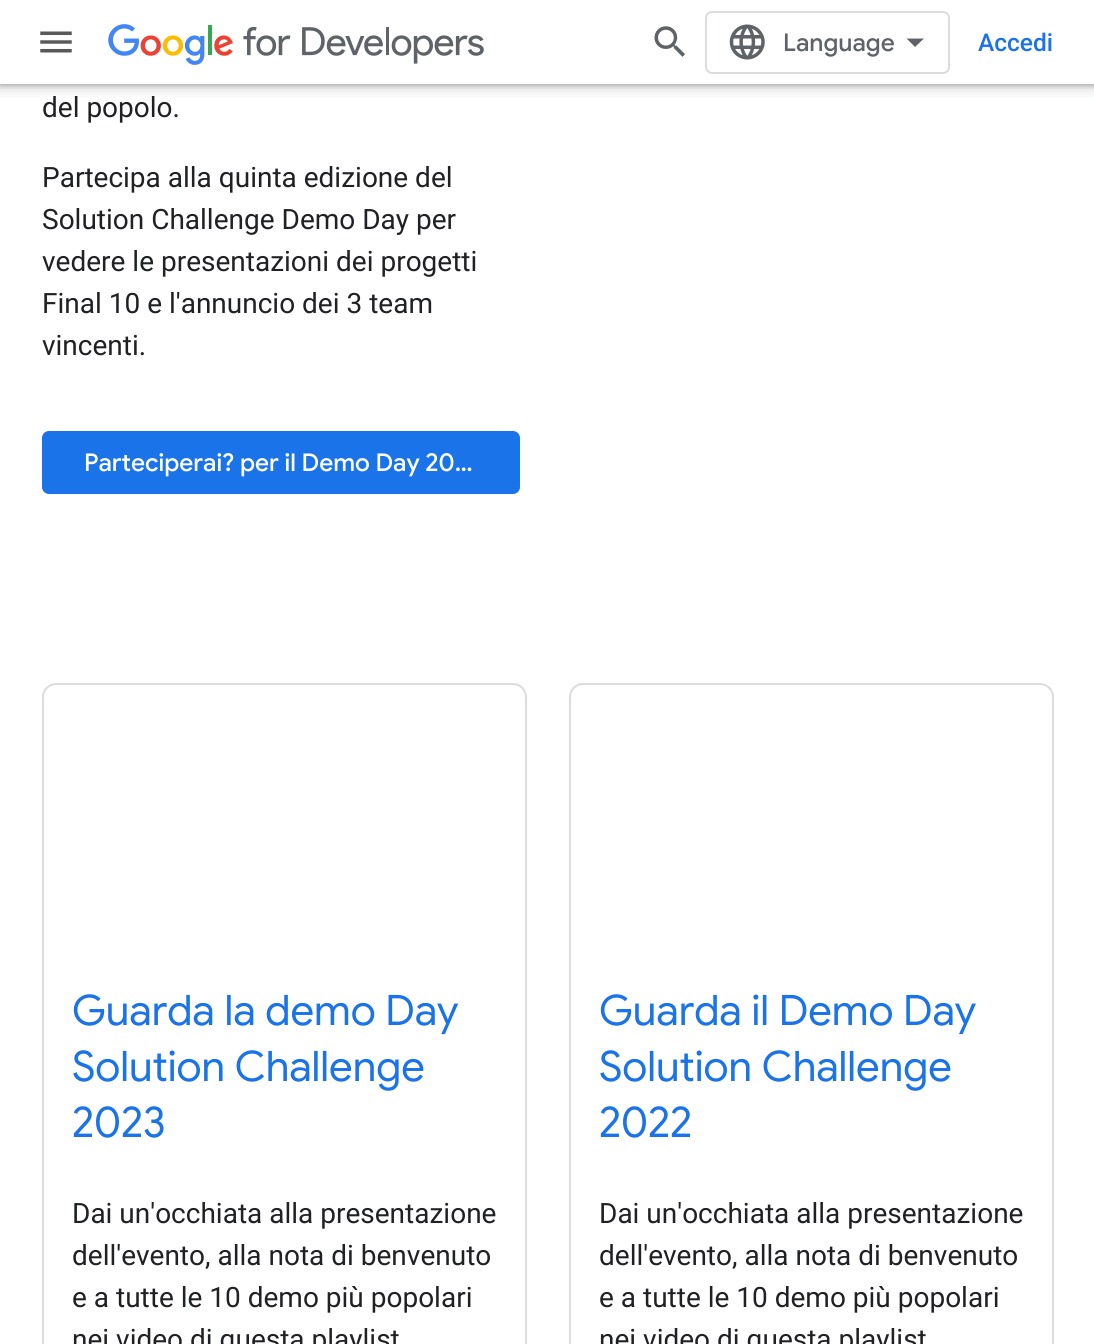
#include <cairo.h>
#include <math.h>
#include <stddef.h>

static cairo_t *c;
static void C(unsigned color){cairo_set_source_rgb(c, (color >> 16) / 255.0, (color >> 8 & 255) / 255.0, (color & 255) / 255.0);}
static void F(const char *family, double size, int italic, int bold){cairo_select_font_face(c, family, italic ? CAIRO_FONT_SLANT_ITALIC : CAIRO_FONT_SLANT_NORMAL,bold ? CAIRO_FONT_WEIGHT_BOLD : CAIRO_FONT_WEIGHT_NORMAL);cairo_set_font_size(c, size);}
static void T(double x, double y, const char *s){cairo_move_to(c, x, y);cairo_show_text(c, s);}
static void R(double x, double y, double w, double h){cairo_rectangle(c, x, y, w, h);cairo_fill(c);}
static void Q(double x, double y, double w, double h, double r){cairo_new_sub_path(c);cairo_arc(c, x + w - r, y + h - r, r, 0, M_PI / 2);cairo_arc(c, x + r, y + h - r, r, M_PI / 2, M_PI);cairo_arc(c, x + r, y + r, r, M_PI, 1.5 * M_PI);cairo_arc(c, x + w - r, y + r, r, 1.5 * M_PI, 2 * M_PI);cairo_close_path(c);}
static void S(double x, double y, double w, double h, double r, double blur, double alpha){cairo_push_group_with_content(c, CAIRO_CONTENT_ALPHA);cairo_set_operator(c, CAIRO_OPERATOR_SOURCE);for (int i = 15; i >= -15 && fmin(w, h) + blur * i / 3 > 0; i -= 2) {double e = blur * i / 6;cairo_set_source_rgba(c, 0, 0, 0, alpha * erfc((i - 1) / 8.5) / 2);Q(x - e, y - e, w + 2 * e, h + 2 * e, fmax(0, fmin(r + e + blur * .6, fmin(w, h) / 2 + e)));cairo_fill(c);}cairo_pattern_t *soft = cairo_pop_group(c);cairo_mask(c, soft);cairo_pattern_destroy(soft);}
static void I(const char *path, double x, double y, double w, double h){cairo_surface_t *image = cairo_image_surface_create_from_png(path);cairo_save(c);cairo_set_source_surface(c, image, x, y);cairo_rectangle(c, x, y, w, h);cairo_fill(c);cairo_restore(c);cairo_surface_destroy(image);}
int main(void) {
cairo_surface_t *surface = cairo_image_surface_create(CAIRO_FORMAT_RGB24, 1094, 1344);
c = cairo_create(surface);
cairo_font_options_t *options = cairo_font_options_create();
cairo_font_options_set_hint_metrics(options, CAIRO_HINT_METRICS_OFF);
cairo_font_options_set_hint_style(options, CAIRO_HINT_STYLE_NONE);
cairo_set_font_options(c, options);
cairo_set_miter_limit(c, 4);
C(0xffffff);
cairo_paint(c);
C(0x3c4043);
S(-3,-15,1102,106,0,5,.15);
S(0,-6,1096,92,0,2,.3);
C(0xffffff);
R(0,0,1094,84);
I("1.png",40,31,32,22);
I("2.png",108,24,376,41);
I("3.png",654,26,31,31);
Q(706,12,243,61,6);
C(0xdadce0);
cairo_stroke(c);
I("4.png",729,24,36,36);
F("Google Sans Medium",24.5,0,0);
C(0x5f6368);
T(783,51,"Language");
cairo_new_path(c);
cairo_move_to(c,915,47);
cairo_line_to(c,906.5,38.5);
cairo_line_to(c,924,38.5);
cairo_close_path(c);
cairo_fill(c);
F("Roboto Medium",24.5,0,0);
C(0x1a73e8);
T(978,51,"Accedi");
F("Roboto",28,0,0);
C(0x202124);
T(42,117,"del popolo.");
T(42,187,"Partecipa alla quinta edizione del");
T(42,229,"Solution Challenge Demo Day per");
T(42,271,"vedere le presentazioni dei progetti");
T(42,313,"Final 10 e l'annuncio dei 3 team");
T(42,355,"vincenti.");
C(0x1a73e8);
Q(42,431,478,63,7);
cairo_fill(c);
F("Google Sans Medium",24.5,0,0);
C(0xffffff);
T(84,471,"Parteciperai? per il Demo Day 20…");
Q(43,684,483,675,13);
C(0xdadce0);
cairo_stroke(c);
F("Google Sans",42,0,0);
C(0x1a73e8);
T(72,1025,"Guarda la demo Day");
T(72,1081,"Solution Challenge");
T(72,1137,"2023");
F("Roboto",28,0,0);
C(0x202124);
T(72,1223,"Dai un'occhiata alla presentazione");
T(72,1265,"dell'evento, alla nota di benvenuto");
T(72,1307,"e a tutte le 10 demo più popolari");
T(72,1349,"nei video di questa playlist");
Q(570,684,483,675,13);
C(0xdadce0);
cairo_stroke(c);
F("Google Sans",42,0,0);
C(0x1a73e8);
T(599,1025,"Guarda il Demo Day");
T(599,1081,"Solution Challenge");
T(599,1137,"2022");
F("Roboto",28,0,0);
C(0x202124);
T(599,1223,"Dai un'occhiata alla presentazione");
T(599,1265,"dell'evento, alla nota di benvenuto");
T(599,1307,"e a tutte le 10 demo più popolari");
T(599,1349,"nei video di questa playlist");
cairo_surface_write_to_png(surface, "o.png");
cairo_font_options_destroy(options);
cairo_destroy(c);
cairo_surface_destroy(surface);
return 0;
}
